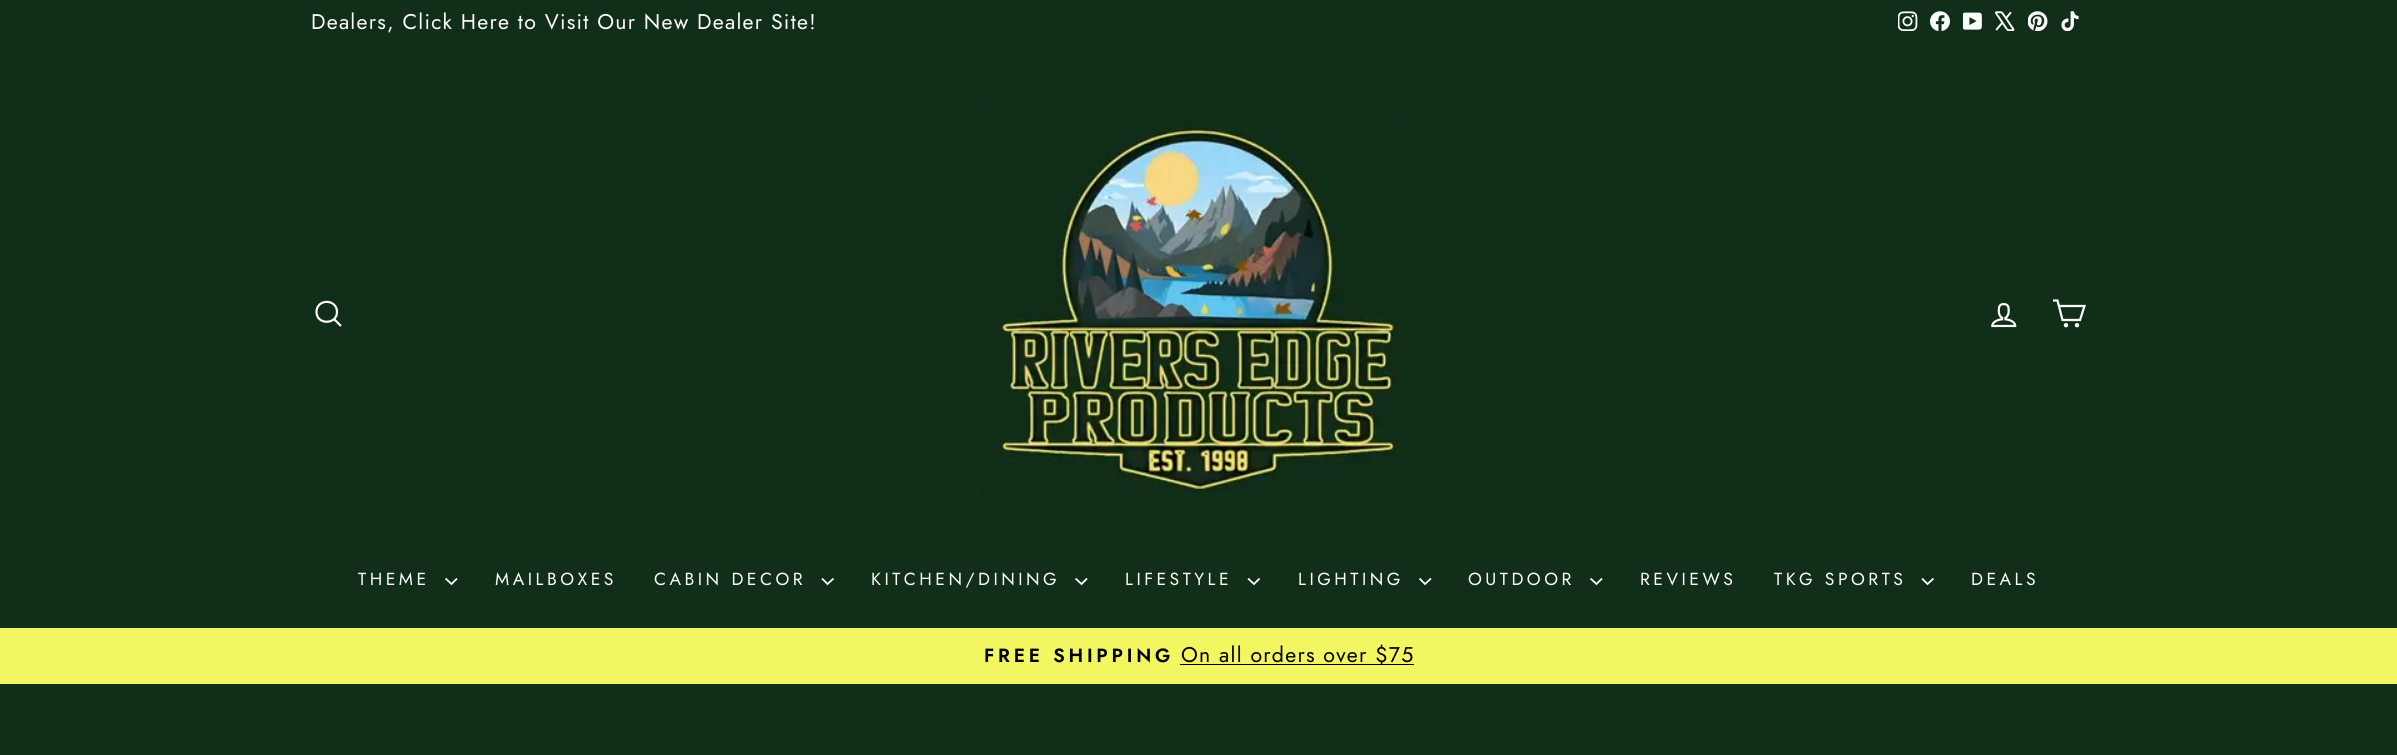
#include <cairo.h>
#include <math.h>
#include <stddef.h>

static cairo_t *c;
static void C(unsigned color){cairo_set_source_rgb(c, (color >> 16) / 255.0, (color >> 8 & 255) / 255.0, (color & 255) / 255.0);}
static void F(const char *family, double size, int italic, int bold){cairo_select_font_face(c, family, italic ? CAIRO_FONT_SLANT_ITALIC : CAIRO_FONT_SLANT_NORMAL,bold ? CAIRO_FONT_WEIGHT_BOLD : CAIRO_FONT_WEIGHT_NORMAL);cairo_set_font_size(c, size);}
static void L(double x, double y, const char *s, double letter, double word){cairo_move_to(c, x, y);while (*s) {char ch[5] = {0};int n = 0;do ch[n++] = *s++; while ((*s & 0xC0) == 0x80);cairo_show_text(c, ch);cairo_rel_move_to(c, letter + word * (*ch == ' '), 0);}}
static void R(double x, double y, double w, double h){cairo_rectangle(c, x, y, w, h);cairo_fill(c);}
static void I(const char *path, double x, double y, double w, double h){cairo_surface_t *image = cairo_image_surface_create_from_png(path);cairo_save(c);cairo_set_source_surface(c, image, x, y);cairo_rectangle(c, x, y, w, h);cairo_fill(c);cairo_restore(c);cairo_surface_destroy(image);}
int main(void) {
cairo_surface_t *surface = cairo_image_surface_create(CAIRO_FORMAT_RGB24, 2397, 755);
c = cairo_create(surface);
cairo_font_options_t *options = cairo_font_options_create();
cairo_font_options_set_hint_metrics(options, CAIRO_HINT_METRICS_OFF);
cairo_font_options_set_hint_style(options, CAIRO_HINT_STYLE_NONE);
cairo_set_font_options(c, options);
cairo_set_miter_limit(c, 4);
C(0x112e19);
cairo_paint(c);
F("Jost",21.25,0,0);
C(0xfcfcfc);
L(311,29,"Dealers, Click Here to Visit Our New Dealer Site!",1.25,0);
I("1.png",1898,11,20,20);
I("2.png",1930,11,20,20);
I("3.png",1963,12,19,18);
I("4.png",1995,11,20,20);
I("5.png",2028,11,20,20);
I("6.png",2061,11,18,20);
cairo_new_path(c);
cairo_move_to(c,337,312);
cairo_curve_to(c,337,325,316.5,325,316.5,312);
cairo_curve_to(c,316.5,298.5,337,298.5,337,312);
cairo_close_path(c);
cairo_move_to(c,341,326);
cairo_line_to(c,334,319);
cairo_set_line_width(c,2.2);
cairo_stroke(c);
I("7.png",980,95,419,398);
I("8.png",1991,303,26,25);
cairo_new_path(c);
cairo_move_to(c,2059,306);
cairo_line_to(c,2084.5,306);
cairo_line_to(c,2080,320);
cairo_line_to(c,2062.5,320);
cairo_line_to(c,2057.5,300.5);
cairo_line_to(c,2053,300.5);
cairo_stroke(c);
cairo_arc(c,2066,325.2,1.1,0,2 * M_PI);
cairo_stroke(c);
cairo_arc(c,2077,325.2,1.1,0,2 * M_PI);
cairo_stroke(c);
F("Jost",17.5,0,0);
L(358,585,"THEME",3.5,0);
cairo_new_path(c);
cairo_move_to(c,445.5,578.5);
cairo_line_to(c,451.5,584);
cairo_line_to(c,457,578.5);
cairo_set_line_width(c,1.8);
cairo_stroke(c);
L(495,585,"MAILBOXES",3.5,0);
L(654,585,"CABIN DECOR",3.5,0);
cairo_new_path(c);
cairo_move_to(c,822,578.5);
cairo_line_to(c,827.5,584);
cairo_line_to(c,833.5,578.5);
cairo_stroke(c);
L(871,585,"KITCHEN/DINING",3.5,0);
cairo_new_path(c);
cairo_move_to(c,1075.5,578.5);
cairo_line_to(c,1081.5,584);
cairo_line_to(c,1087,578.5);
cairo_stroke(c);
L(1125,585,"LIFESTYLE",3.5,0);
cairo_new_path(c);
cairo_move_to(c,1248,578.5);
cairo_line_to(c,1254,584);
cairo_line_to(c,1259.5,578.5);
cairo_stroke(c);
L(1298,585,"LIGHTING",3.5,0);
cairo_new_path(c);
cairo_move_to(c,1419.5,578.5);
cairo_line_to(c,1425,584);
cairo_line_to(c,1431,578.5);
cairo_stroke(c);
L(1468,585,"OUTDOOR",3.5,0);
cairo_new_path(c);
cairo_move_to(c,1590.5,578.5);
cairo_line_to(c,1596.5,584);
cairo_line_to(c,1602,578.5);
cairo_stroke(c);
L(1640,585,"REVIEWS",3.5,0);
L(1774,585,"TKG SPORTS",3.5,0);
cairo_new_path(c);
cairo_move_to(c,1922,578.5);
cairo_line_to(c,1927.5,584);
cairo_line_to(c,1933.5,578.5);
cairo_stroke(c);
L(1971,585,"DEALS",3.5,0);
C(0xf2f761);
R(0,628,2397,56);
F("Jost SemiBold",19.1,0,0);
C(0x020000);
L(984,662,"FREE SHIPPING",3.8,0);
R(1180,664,234,1);
F("Jost",21.25,0,0);
L(1181,662,"On all orders over $75",1.25,0);
cairo_surface_write_to_png(surface, "o.png");
cairo_font_options_destroy(options);
cairo_destroy(c);
cairo_surface_destroy(surface);
return 0;
}
